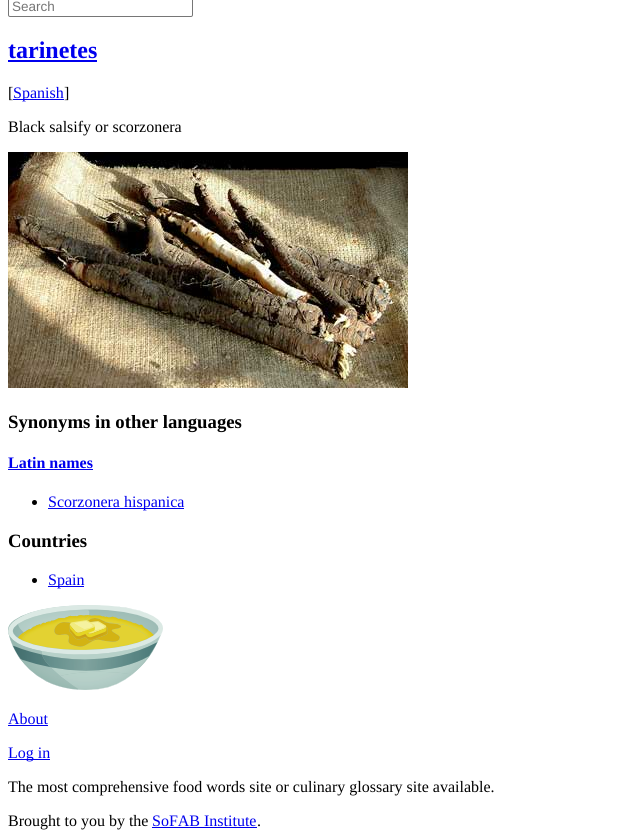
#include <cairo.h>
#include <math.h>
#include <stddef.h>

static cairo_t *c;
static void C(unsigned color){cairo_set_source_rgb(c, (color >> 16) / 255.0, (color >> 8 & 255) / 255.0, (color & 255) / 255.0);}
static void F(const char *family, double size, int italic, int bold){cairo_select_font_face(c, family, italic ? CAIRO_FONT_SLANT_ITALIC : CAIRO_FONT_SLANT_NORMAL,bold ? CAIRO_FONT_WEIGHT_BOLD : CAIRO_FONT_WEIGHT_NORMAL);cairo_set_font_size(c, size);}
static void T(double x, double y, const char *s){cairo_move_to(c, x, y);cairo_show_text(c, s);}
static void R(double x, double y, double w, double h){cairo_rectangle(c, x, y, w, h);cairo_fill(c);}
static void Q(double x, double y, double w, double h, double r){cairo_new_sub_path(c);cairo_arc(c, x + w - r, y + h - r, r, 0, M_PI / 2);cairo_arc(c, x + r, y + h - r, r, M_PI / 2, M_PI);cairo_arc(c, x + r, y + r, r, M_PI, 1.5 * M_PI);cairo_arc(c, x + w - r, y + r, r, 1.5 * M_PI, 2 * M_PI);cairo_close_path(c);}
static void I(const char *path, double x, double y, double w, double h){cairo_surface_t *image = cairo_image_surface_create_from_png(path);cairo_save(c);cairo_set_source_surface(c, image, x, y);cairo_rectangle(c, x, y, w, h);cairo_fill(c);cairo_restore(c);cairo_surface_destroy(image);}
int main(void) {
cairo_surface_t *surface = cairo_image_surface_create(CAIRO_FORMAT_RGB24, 622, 836);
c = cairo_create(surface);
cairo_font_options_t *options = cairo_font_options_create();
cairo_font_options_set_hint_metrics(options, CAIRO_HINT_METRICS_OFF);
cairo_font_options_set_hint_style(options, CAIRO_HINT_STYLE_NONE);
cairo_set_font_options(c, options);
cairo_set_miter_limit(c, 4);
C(0xffffff);
cairo_paint(c);
Q(8.5,-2.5,184,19,1.5);
C(0x767676);
cairo_set_line_width(c,1);
cairo_stroke(c);
F("Liberation Sans",13.5,0,0);
C(0x757575);
T(12,11,"Search");
F("Liberation Serif",24,0,1);
C(0x0000ee);
T(8,58,"tarinetes");
R(8,60,89,2);
F("Liberation Serif",16,0,0);
C(0x000000);
T(8,98,"[");
C(0x0000ee);
R(13,99,51,1);
T(13,98,"Spanish");
C(0x000000);
T(64,98,"]");
T(8,132,"Black salsify or scorzonera");
I("1.png",8,152,400,236);
F("Liberation Serif",18.75,0,1);
T(8,428,"Synonyms in other languages");
F("Liberation Serif",16,0,1);
C(0x0000ee);
T(8,468,"Latin names");
R(8,469,85,1);
C(0x000000);
cairo_new_path(c);
cairo_arc(c,34.5,502.5,2.5,0,2 * M_PI);
cairo_fill(c);
C(0x0000ee);
R(48,508,136,1);
F("Liberation Serif",16,0,0);
T(48,507,"Scorzonera hispanica");
F("Liberation Serif",18.75,0,1);
C(0x000000);
T(8,547,"Countries");
cairo_new_path(c);
cairo_arc(c,34.5,580.5,2.5,0,2 * M_PI);
cairo_fill(c);
C(0x0000ee);
R(48,586,36,1);
F("Liberation Serif",16,0,0);
T(48,585,"Spain");
I("2.png",8,605,155,85);
T(8,724,"About");
R(8,725,40,1);
R(8,759,42,1);
T(8,758,"Log in");
C(0x000000);
T(8,792,"The most comprehensive food words site or culinary glossary site available.");
T(8,826,"Brought to you by the");
C(0x0000ee);
T(152,826,"SoFAB Institute");
R(152,827,105,1);
C(0x000000);
T(257,826,".");
cairo_surface_write_to_png(surface, "o.png");
cairo_font_options_destroy(options);
cairo_destroy(c);
cairo_surface_destroy(surface);
return 0;
}
